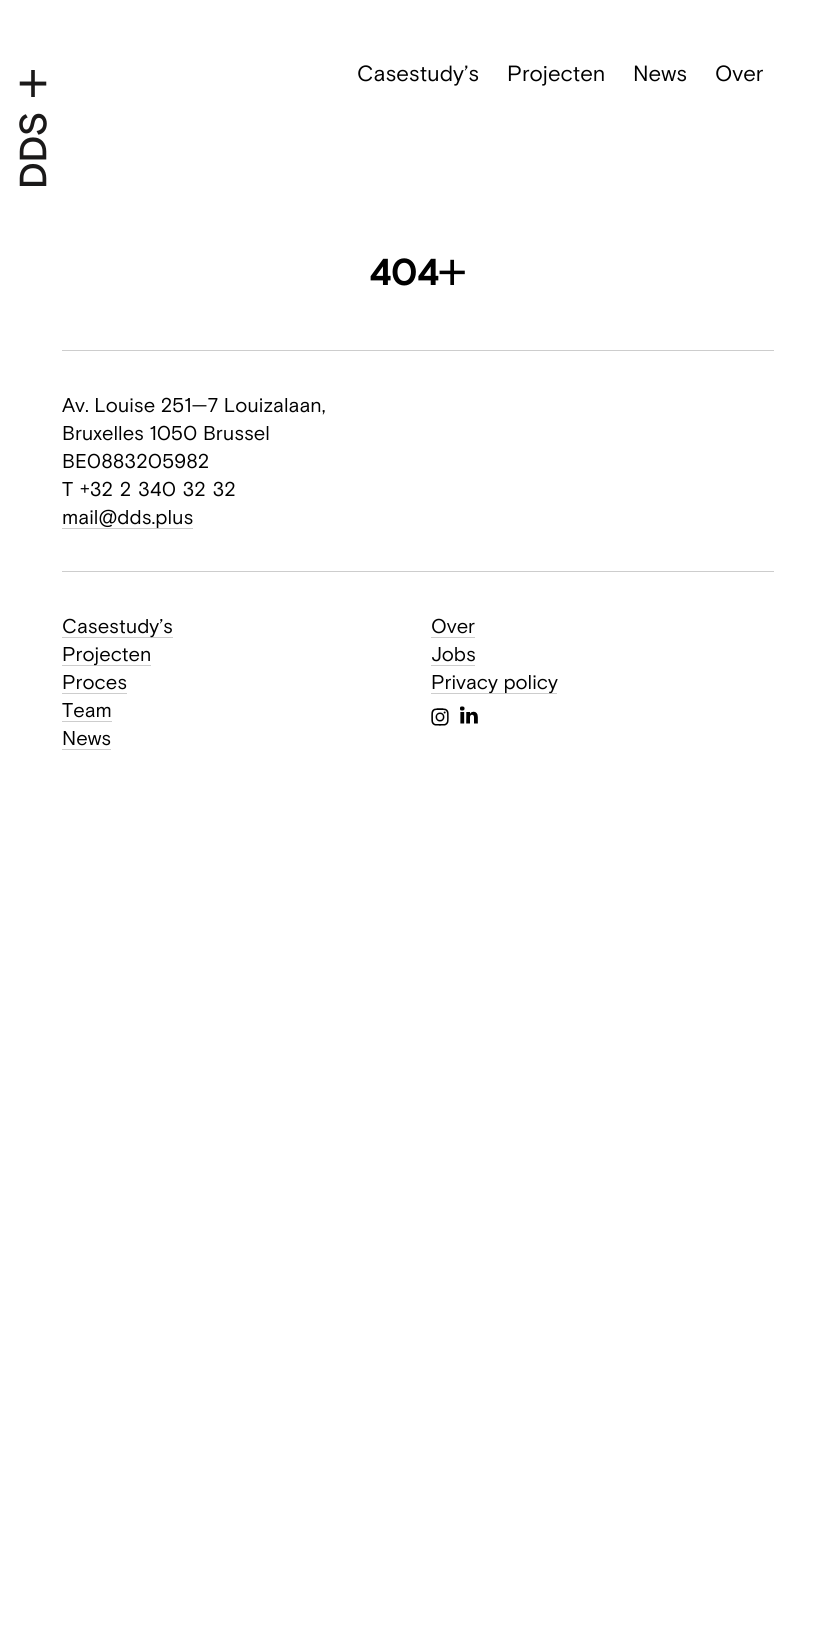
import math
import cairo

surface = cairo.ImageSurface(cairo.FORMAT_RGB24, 836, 1633)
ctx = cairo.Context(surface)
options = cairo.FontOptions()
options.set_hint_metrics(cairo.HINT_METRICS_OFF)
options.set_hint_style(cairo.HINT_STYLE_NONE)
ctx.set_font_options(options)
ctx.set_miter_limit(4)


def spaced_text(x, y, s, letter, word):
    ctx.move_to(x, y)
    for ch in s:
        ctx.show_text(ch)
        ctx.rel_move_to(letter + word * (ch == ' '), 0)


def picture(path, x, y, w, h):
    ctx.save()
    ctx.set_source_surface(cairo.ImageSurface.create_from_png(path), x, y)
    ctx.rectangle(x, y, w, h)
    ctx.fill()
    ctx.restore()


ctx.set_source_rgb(1, 1, 1)
ctx.paint()
picture("img1.png", 19, 70, 28, 116)
ctx.select_font_face("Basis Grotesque")
ctx.set_font_size(22)
ctx.set_source_rgb(0, 0, 0)
ctx.move_to(357, 81)
ctx.show_text("Casestudy’s")
ctx.move_to(507, 81)
ctx.show_text("Projecten")
ctx.move_to(633, 81)
ctx.show_text("News")
ctx.move_to(715, 81)
ctx.show_text("Over")
ctx.select_font_face("Basis Grotesque", cairo.FONT_SLANT_NORMAL, cairo.FONT_WEIGHT_BOLD)
ctx.set_font_size(36)
ctx.move_to(369, 285)
ctx.show_text("404")
ctx.select_font_face("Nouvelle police")
ctx.move_to(438, 285)
ctx.show_text("+")
ctx.set_source_rgb(0.804, 0.804, 0.804)
ctx.rectangle(62, 350, 712, 1)
ctx.fill()
ctx.select_font_face("Basis Grotesque")
ctx.set_font_size(20)
ctx.set_source_rgb(0, 0, 0)
ctx.move_to(62, 412)
ctx.show_text("Av. Louise 251—7 Louizalaan,")
ctx.move_to(62, 440)
ctx.show_text("Bruxelles 1050 Brussel")
ctx.move_to(62, 468)
ctx.show_text("BE0883205982")
spaced_text(62, 496, "T +32 2 340 32 32", 0, 1)
ctx.set_source_rgb(0.804, 0.804, 0.804)
ctx.rectangle(62, 528, 131, 1)
ctx.fill()
ctx.set_source_rgb(0, 0, 0)
ctx.move_to(62, 524)
ctx.show_text("mail@dds.plus")
ctx.set_source_rgb(0.804, 0.804, 0.804)
ctx.rectangle(62, 571, 712, 1)
ctx.fill()
ctx.rectangle(62, 637, 111, 1)
ctx.fill()
ctx.set_source_rgb(0, 0, 0)
ctx.move_to(62, 633)
ctx.show_text("Casestudy’s")
ctx.set_source_rgb(0.804, 0.804, 0.804)
ctx.rectangle(62, 665, 89, 1)
ctx.fill()
ctx.set_source_rgb(0, 0, 0)
ctx.move_to(62, 661)
ctx.show_text("Projecten")
ctx.set_source_rgb(0.804, 0.804, 0.804)
ctx.rectangle(62, 693, 65, 1)
ctx.fill()
ctx.set_source_rgb(0, 0, 0)
ctx.move_to(62, 689)
ctx.show_text("Proces")
ctx.set_source_rgb(0.804, 0.804, 0.804)
ctx.rectangle(62, 721, 50, 1)
ctx.fill()
ctx.set_source_rgb(0, 0, 0)
ctx.move_to(62, 717)
ctx.show_text("Team")
ctx.set_source_rgb(0.804, 0.804, 0.804)
ctx.rectangle(62, 749, 49, 1)
ctx.fill()
ctx.set_source_rgb(0, 0, 0)
ctx.move_to(62, 745)
ctx.show_text("News")
ctx.set_source_rgb(0.804, 0.804, 0.804)
ctx.rectangle(431, 637, 44, 1)
ctx.fill()
ctx.set_source_rgb(0, 0, 0)
ctx.move_to(431, 633)
ctx.show_text("Over")
ctx.set_source_rgb(0.804, 0.804, 0.804)
ctx.rectangle(431, 665, 44, 1)
ctx.fill()
ctx.set_source_rgb(0, 0, 0)
ctx.move_to(431, 661)
ctx.show_text("Jobs")
ctx.set_source_rgb(0.804, 0.804, 0.804)
ctx.rectangle(431, 693, 126, 1)
ctx.fill()
ctx.set_source_rgb(0, 0, 0)
ctx.move_to(431, 689)
ctx.show_text("Privacy policy")
picture("img2.png", 431, 708, 18, 18)
picture("img3.png", 460, 706, 18, 18)
surface.write_to_png("page.png")
